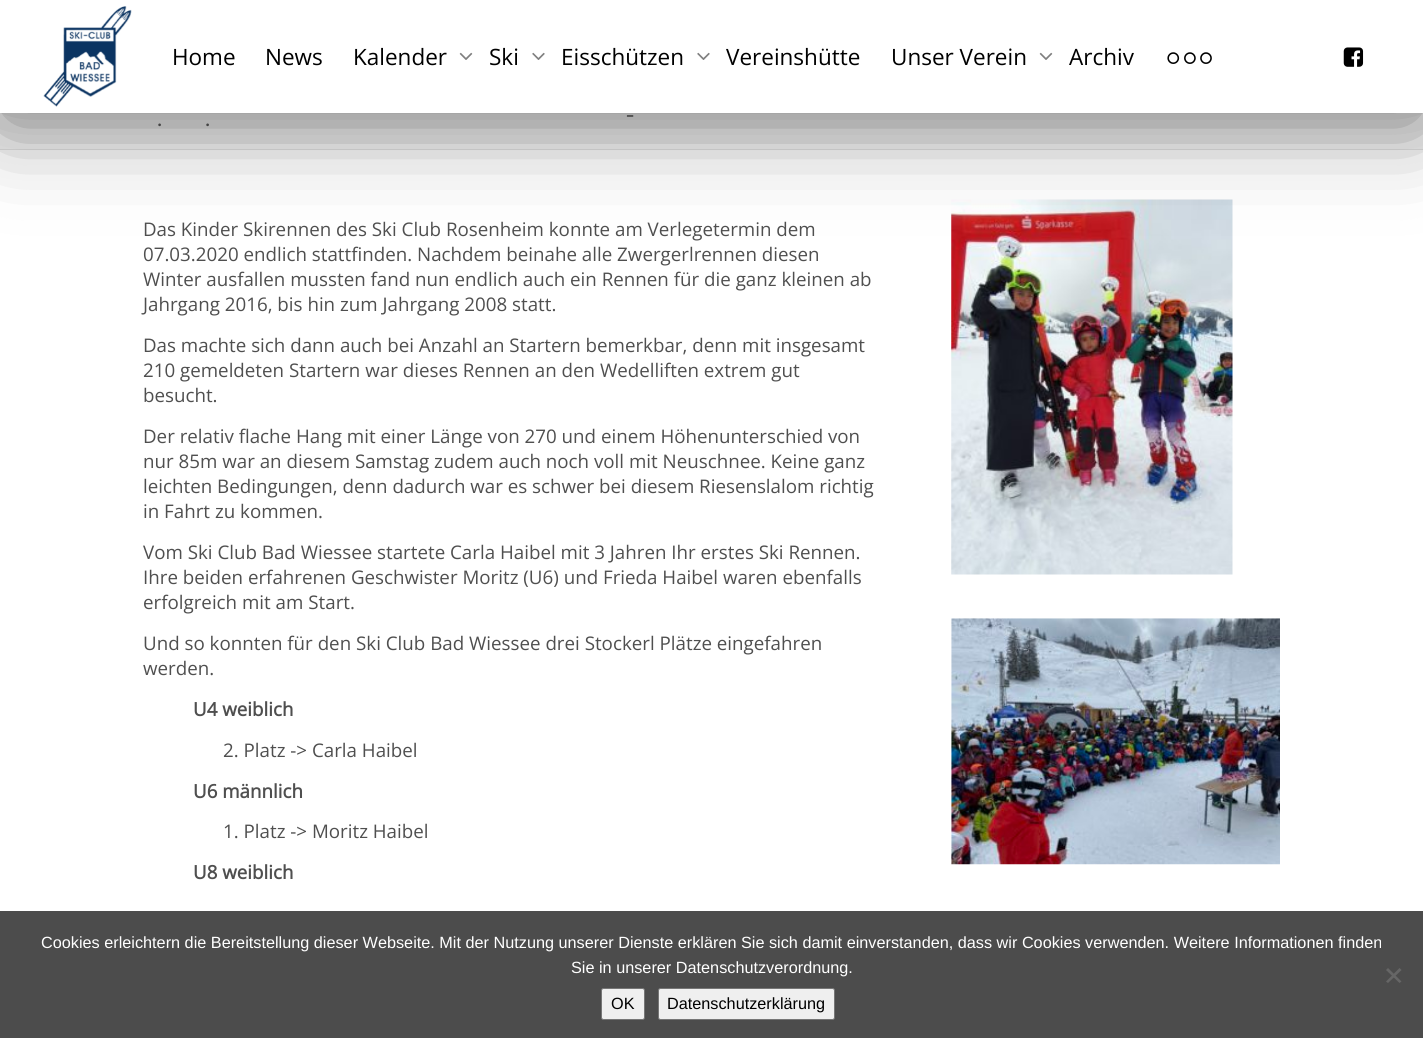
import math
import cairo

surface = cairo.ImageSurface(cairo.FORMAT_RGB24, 1423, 1038)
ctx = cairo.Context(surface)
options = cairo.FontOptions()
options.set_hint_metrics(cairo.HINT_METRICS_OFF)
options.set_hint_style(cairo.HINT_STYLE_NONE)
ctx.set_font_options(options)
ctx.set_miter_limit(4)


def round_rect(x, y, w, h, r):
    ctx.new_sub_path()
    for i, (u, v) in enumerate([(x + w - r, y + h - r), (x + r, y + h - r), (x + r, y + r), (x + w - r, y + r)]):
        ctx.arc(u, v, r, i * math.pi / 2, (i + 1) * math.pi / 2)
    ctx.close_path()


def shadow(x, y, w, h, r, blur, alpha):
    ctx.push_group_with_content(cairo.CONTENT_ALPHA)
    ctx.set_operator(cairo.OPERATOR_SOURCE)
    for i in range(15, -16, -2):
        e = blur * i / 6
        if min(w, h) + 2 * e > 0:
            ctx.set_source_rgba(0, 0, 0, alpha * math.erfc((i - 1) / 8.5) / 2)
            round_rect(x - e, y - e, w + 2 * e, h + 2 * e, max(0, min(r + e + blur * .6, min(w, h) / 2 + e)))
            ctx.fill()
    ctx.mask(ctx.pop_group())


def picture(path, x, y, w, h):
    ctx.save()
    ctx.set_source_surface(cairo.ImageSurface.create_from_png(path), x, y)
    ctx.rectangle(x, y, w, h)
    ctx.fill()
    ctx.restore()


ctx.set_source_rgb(1, 1, 1)
ctx.paint()
ctx.set_source_rgb(0.969, 0.969, 0.969)
ctx.rectangle(0, 113, 1423, 36)
ctx.fill()
ctx.set_source_rgb(0.898, 0.898, 0.898)
ctx.rectangle(0, 149, 1423, 1)
ctx.fill()
picture("img6.png", 951, 199, 282, 376)
ctx.set_source_rgb(0, 0, 0)
shadow(3, -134, 1418, 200, 2.5, 46, 0.5)
shadow(3, 14, 1418, 107, 0, 46, 0.5)
ctx.set_source_rgb(1, 1, 1)
ctx.rectangle(0, 0, 1423, 113)
ctx.fill()
picture("img1.png", 43, 6, 89, 101)
ctx.select_font_face("Open Sans")
ctx.set_font_size(22.5)
ctx.set_source_rgb(0, 0, 0)
ctx.move_to(172, 65)
ctx.show_text("Home")
ctx.move_to(265, 65)
ctx.show_text("News")
ctx.move_to(353, 65)
ctx.show_text("Kalender")
picture("img2.png", 459, 52, 14, 8)
ctx.move_to(489, 65)
ctx.show_text("Ski")
picture("img3.png", 532, 52, 13, 8)
ctx.move_to(561, 65)
ctx.show_text("Eisschützen")
picture("img3.png", 697, 52, 13, 8)
ctx.move_to(726, 65)
ctx.show_text("Vereinshütte")
ctx.move_to(891, 65)
ctx.show_text("Unser Verein")
picture("img2.png", 1039, 52, 14, 8)
ctx.move_to(1069, 65)
ctx.show_text("Archiv")
picture("img4.png", 1167, 52, 45, 12)
picture("img5.png", 1343, 47, 21, 20)
ctx.select_font_face("Roboto Condensed Light")
ctx.set_font_size(32)
ctx.set_source_rgb(0.267, 0.267, 0.267)
ctx.move_to(626, 126)
ctx.show_text("-")
ctx.move_to(156, 126)
ctx.show_text(".")
ctx.move_to(204, 126)
ctx.show_text(".")
ctx.select_font_face("Open Sans")
ctx.set_font_size(18.75)
ctx.set_source_rgb(0.31, 0.31, 0.31)
ctx.move_to(143, 236)
ctx.show_text("Das Kinder Skirennen des Ski Club Rosenheim konnte am Verlegetermin dem")
ctx.move_to(143, 261)
ctx.show_text("07.03.2020 endlich stattfinden. Nachdem beinahe alle Zwergerlrennen diesen")
ctx.move_to(143, 286)
ctx.show_text("Winter ausfallen mussten fand nun endlich auch ein Rennen für die ganz kleinen ab")
ctx.move_to(143, 311)
ctx.show_text("Jahrgang 2016, bis hin zum Jahrgang 2008 statt.")
ctx.move_to(143, 352)
ctx.show_text("Das machte sich dann auch bei Anzahl an Startern bemerkbar, denn mit insgesamt")
ctx.move_to(143, 377)
ctx.show_text("210 gemeldeten Startern war dieses Rennen an den Wedelliften extrem gut")
ctx.move_to(143, 402)
ctx.show_text("besucht.")
ctx.move_to(143, 443)
ctx.show_text("Der relativ flache Hang mit einer Länge von 270 und einem Höhenunterschied von")
ctx.move_to(143, 468)
ctx.show_text("nur 85m war an diesem Samstag zudem auch noch voll mit Neuschnee. Keine ganz")
ctx.move_to(143, 493)
ctx.show_text("leichten Bedingungen, denn dadurch war es schwer bei diesem Riesenslalom richtig")
ctx.move_to(143, 518)
ctx.show_text("in Fahrt zu kommen.")
ctx.move_to(143, 559)
ctx.show_text("Vom Ski Club Bad Wiessee startete Carla Haibel mit 3 Jahren Ihr erstes Ski Rennen.")
ctx.move_to(143, 584)
ctx.show_text("Ihre beiden erfahrenen Geschwister Moritz (U6) und Frieda Haibel waren ebenfalls")
ctx.move_to(143, 609)
ctx.show_text("erfolgreich mit am Start.")
ctx.move_to(143, 650)
ctx.show_text("Und so konnten für den Ski Club Bad Wiessee drei Stockerl Plätze eingefahren")
ctx.move_to(143, 675)
ctx.show_text("werden.")
ctx.select_font_face("Open Sans", cairo.FONT_SLANT_NORMAL, cairo.FONT_WEIGHT_BOLD)
ctx.move_to(193, 716)
ctx.show_text("U4 weiblich")
ctx.select_font_face("Open Sans")
ctx.move_to(223, 757)
ctx.show_text("2. Platz -> Carla Haibel")
ctx.select_font_face("Open Sans", cairo.FONT_SLANT_NORMAL, cairo.FONT_WEIGHT_BOLD)
ctx.move_to(193, 798)
ctx.show_text("U6 männlich")
ctx.select_font_face("Open Sans")
ctx.move_to(223, 838)
ctx.show_text("1. Platz -> Moritz Haibel")
ctx.select_font_face("Open Sans", cairo.FONT_SLANT_NORMAL, cairo.FONT_WEIGHT_BOLD)
ctx.move_to(193, 879)
ctx.show_text("U8 weiblich")
picture("img7.png", 951, 618, 329, 247)
ctx.set_source_rgba(0, 0, 0, 0.7)
ctx.rectangle(0, 911, 1423, 127)
ctx.fill()
ctx.select_font_face("Liberation Sans")
ctx.set_font_size(16.25)
ctx.set_source_rgb(1, 1, 1)
ctx.move_to(41, 948)
ctx.show_text("Cookies erleichtern die Bereitstellung dieser Webseite. Mit der Nutzung unserer Dienste erklären Sie sich damit einverstanden, dass wir Cookies verwenden. Weitere Informationen finden")
ctx.move_to(571, 973)
ctx.show_text("Sie in unserer Datenschutzverordnung.")
ctx.set_source_rgb(0.4, 0.4, 0.4)
ctx.new_path()
ctx.move_to(1399.5, 968)
ctx.line_to(1401.5, 970)
ctx.line_to(1388, 983)
ctx.line_to(1386, 981.5)
ctx.close_path()
ctx.fill()
ctx.new_path()
ctx.move_to(1386, 970)
ctx.line_to(1388, 968)
ctx.line_to(1401.5, 981.5)
ctx.line_to(1399.5, 983)
ctx.close_path()
ctx.fill()
ctx.set_source_rgb(0.937, 0.937, 0.937)
round_rect(601.5, 988.5, 43, 31, 2)
ctx.fill_preserve()
ctx.set_source_rgb(0.463, 0.463, 0.463)
ctx.set_line_width(1)
ctx.stroke()
ctx.set_source_rgb(0, 0, 0)
ctx.move_to(611, 1009)
ctx.show_text("OK")
ctx.set_source_rgb(0.937, 0.937, 0.937)
round_rect(658.5, 988.5, 176, 31, 2)
ctx.fill_preserve()
ctx.set_source_rgb(0.463, 0.463, 0.463)
ctx.stroke()
ctx.set_source_rgb(0, 0, 0)
ctx.move_to(667, 1009)
ctx.show_text("Datenschutzerklärung")
surface.write_to_png("page.png")
